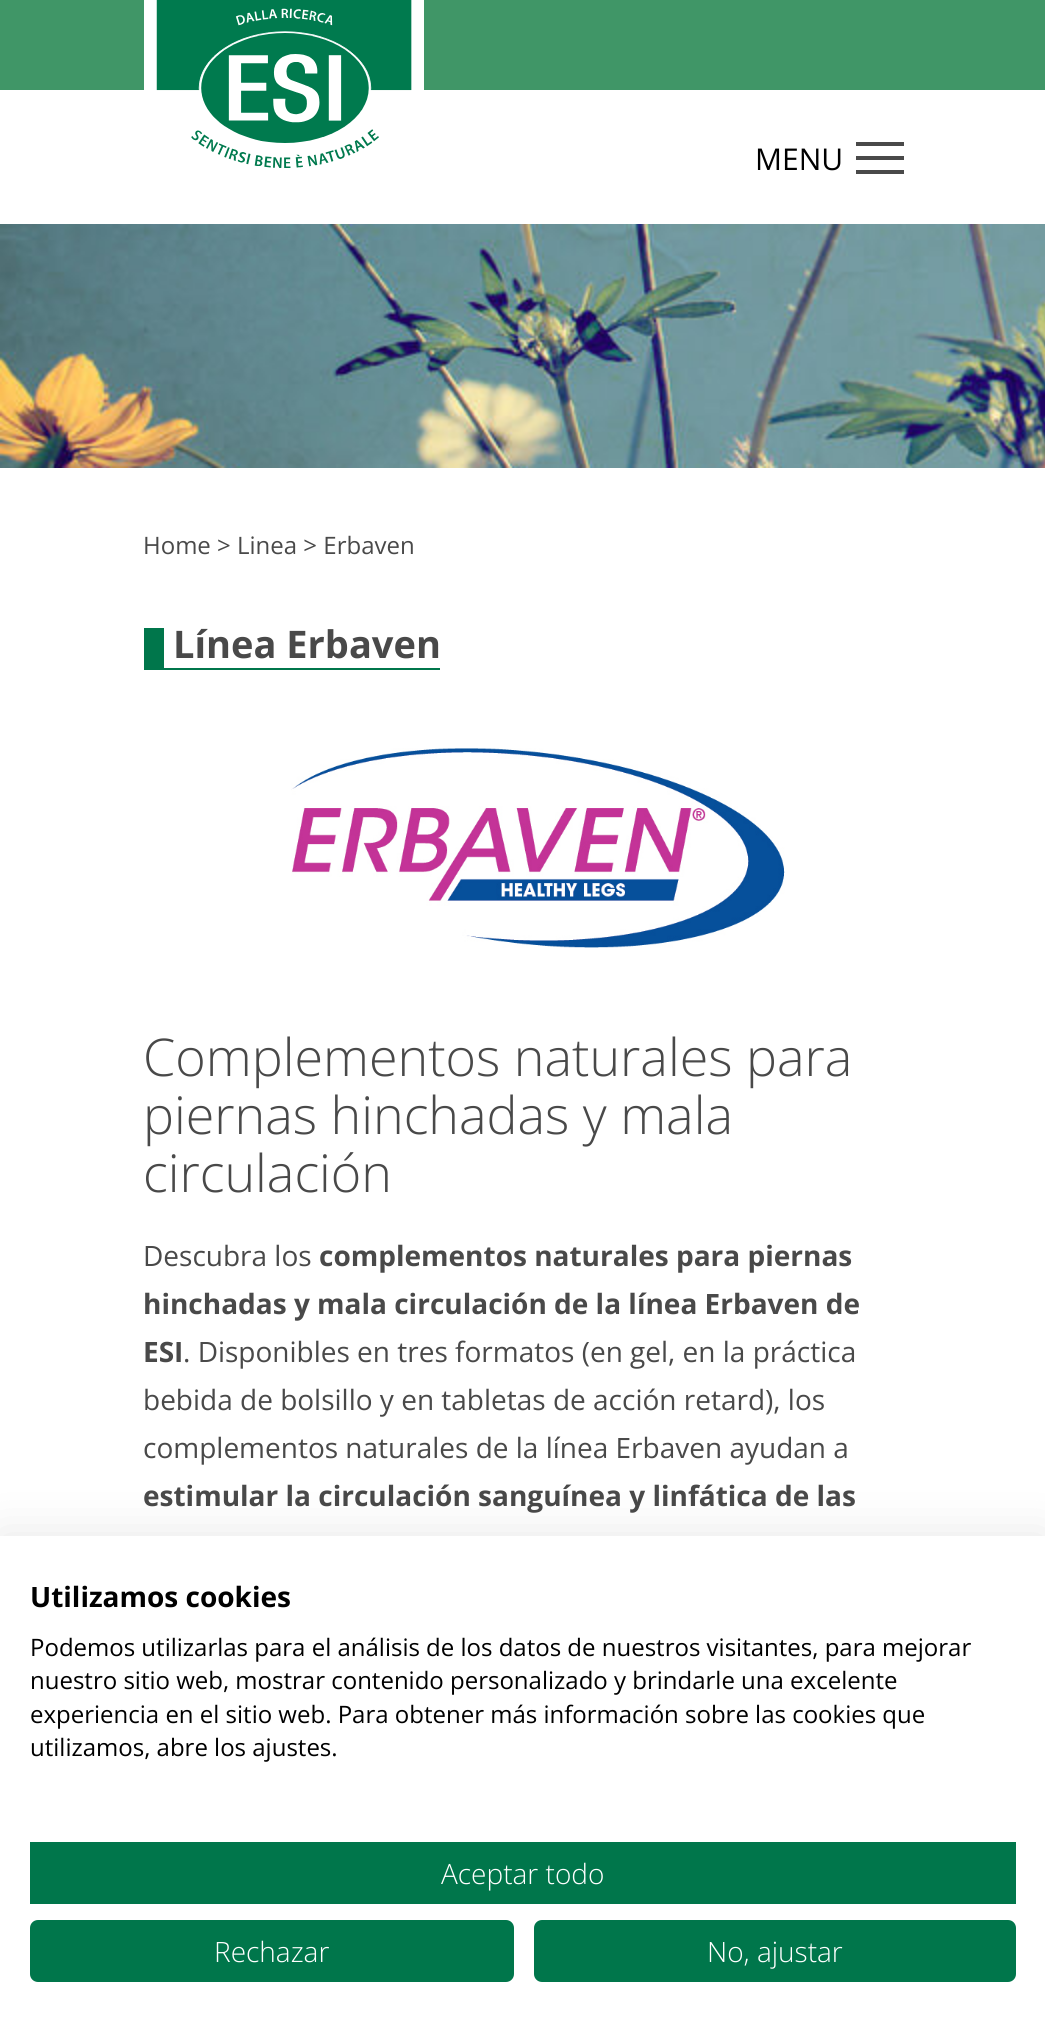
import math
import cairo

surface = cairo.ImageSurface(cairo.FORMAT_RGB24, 1045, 2035)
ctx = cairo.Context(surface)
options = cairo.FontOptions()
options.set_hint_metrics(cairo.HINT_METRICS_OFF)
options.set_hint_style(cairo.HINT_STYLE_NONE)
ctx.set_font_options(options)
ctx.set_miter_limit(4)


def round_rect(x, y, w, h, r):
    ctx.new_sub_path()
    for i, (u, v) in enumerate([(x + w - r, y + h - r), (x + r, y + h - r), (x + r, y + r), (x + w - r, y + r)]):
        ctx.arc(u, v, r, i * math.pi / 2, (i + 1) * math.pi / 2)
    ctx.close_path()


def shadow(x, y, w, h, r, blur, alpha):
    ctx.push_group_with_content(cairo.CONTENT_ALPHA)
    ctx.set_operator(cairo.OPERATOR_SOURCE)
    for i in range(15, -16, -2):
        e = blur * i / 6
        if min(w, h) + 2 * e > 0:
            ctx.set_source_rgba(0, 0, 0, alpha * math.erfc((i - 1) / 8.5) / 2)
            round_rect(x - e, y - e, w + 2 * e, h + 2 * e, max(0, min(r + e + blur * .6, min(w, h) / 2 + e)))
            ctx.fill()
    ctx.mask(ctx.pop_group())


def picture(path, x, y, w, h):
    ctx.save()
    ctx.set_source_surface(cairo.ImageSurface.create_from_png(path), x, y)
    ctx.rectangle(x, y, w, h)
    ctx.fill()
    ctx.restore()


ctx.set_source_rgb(1, 1, 1)
ctx.paint()
ctx.set_source_rgb(0.251, 0.588, 0.404)
ctx.rectangle(0, 0, 1045, 90)
ctx.fill()
ctx.set_source_rgb(1, 1, 1)
ctx.rectangle(144, 0, 280, 90)
ctx.fill()
picture("img1.png", 156, 0, 256, 168)
ctx.select_font_face("Open Sans")
ctx.set_font_size(30)
ctx.set_source_rgb(0, 0, 0)
ctx.move_to(755, 170)
ctx.show_text("MENU")
ctx.set_source_rgb(0.286, 0.286, 0.286)
ctx.rectangle(856, 156, 48, 4)
ctx.fill()
ctx.rectangle(856, 142, 48, 4)
ctx.fill()
ctx.rectangle(856, 170, 48, 4)
ctx.fill()
picture("img2.png", 0, 224, 1045, 244)
ctx.set_font_size(24)
ctx.move_to(143, 554)
ctx.show_text("Home > Linea > Erbaven")
ctx.set_source_rgb(0, 0.463, 0.294)
ctx.rectangle(144, 668, 296, 2)
ctx.fill()
ctx.rectangle(144, 628, 20, 40)
ctx.fill()
ctx.select_font_face("Open Sans", cairo.FONT_SLANT_NORMAL, cairo.FONT_WEIGHT_BOLD)
ctx.set_font_size(38)
ctx.set_source_rgb(0.286, 0.286, 0.286)
ctx.move_to(173, 658)
ctx.show_text("Línea Erbaven")
picture("img3.png", 291, 748, 494, 200)
ctx.select_font_face("Open Sans Light")
ctx.set_font_size(52)
ctx.move_to(143, 1076)
ctx.show_text("Complementos naturales para")
ctx.move_to(143, 1134)
ctx.show_text("piernas hinchadas y mala")
ctx.move_to(143, 1192)
ctx.show_text("circulación")
ctx.select_font_face("Open Sans")
ctx.set_font_size(28)
ctx.move_to(143, 1266)
ctx.show_text("Descubra los")
ctx.select_font_face("Open Sans", cairo.FONT_SLANT_NORMAL, cairo.FONT_WEIGHT_BOLD)
ctx.move_to(319, 1266)
ctx.show_text("complementos naturales para piernas")
ctx.move_to(143, 1314)
ctx.show_text("hinchadas y mala circulación de la línea Erbaven de")
ctx.move_to(143, 1362)
ctx.show_text("ESI")
ctx.select_font_face("Open Sans")
ctx.move_to(183, 1362)
ctx.show_text(". Disponibles en tres formatos (en gel, en la práctica")
ctx.move_to(143, 1410)
ctx.show_text("bebida de bolsillo y en tabletas de acción retard), los")
ctx.move_to(143, 1458)
ctx.show_text("complementos naturales de la línea Erbaven ayudan a")
ctx.select_font_face("Open Sans", cairo.FONT_SLANT_NORMAL, cairo.FONT_WEIGHT_BOLD)
ctx.move_to(143, 1506)
ctx.show_text("estimular la circulación sanguínea y linfática de las")
ctx.set_source_rgb(0, 0, 0)
shadow(0, 1536, 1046, 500, 0, 24, 0.1)
ctx.set_source_rgb(1, 1, 1)
ctx.rectangle(0, 1536, 1045, 499)
ctx.fill()
ctx.set_source_rgb(0, 0, 0)
ctx.move_to(30, 1607)
ctx.show_text("Utilizamos cookies")
ctx.select_font_face("Open Sans")
ctx.set_font_size(24)
ctx.move_to(30, 1656)
ctx.show_text("Podemos utilizarlas para el análisis de los datos de nuestros visitantes, para mejorar")
ctx.move_to(30, 1689)
ctx.show_text("nuestro sitio web, mostrar contenido personalizado y brindarle una excelente")
ctx.move_to(30, 1723)
ctx.show_text("experiencia en el sitio web. Para obtener más información sobre las cookies que")
ctx.move_to(30, 1756)
ctx.show_text("utilizamos, abre los ajustes.")
ctx.set_source_rgb(0, 0.463, 0.294)
ctx.rectangle(30, 1842, 986, 62)
ctx.fill()
ctx.select_font_face("Open Sans Light")
ctx.set_font_size(28)
ctx.set_source_rgb(1, 1, 1)
ctx.move_to(441, 1884)
ctx.show_text("Aceptar todo")
ctx.set_source_rgb(0, 0.463, 0.294)
round_rect(31, 1921, 482, 60, 7)
ctx.fill_preserve()
ctx.stroke()
ctx.set_source_rgb(1, 1, 1)
ctx.move_to(214, 1962)
ctx.show_text("Rechazar")
ctx.set_source_rgb(0, 0.463, 0.294)
round_rect(535, 1921, 480, 60, 7)
ctx.fill_preserve()
ctx.stroke()
ctx.set_source_rgb(1, 1, 1)
ctx.move_to(707, 1962)
ctx.show_text("No, ajustar")
surface.write_to_png("page.png")
